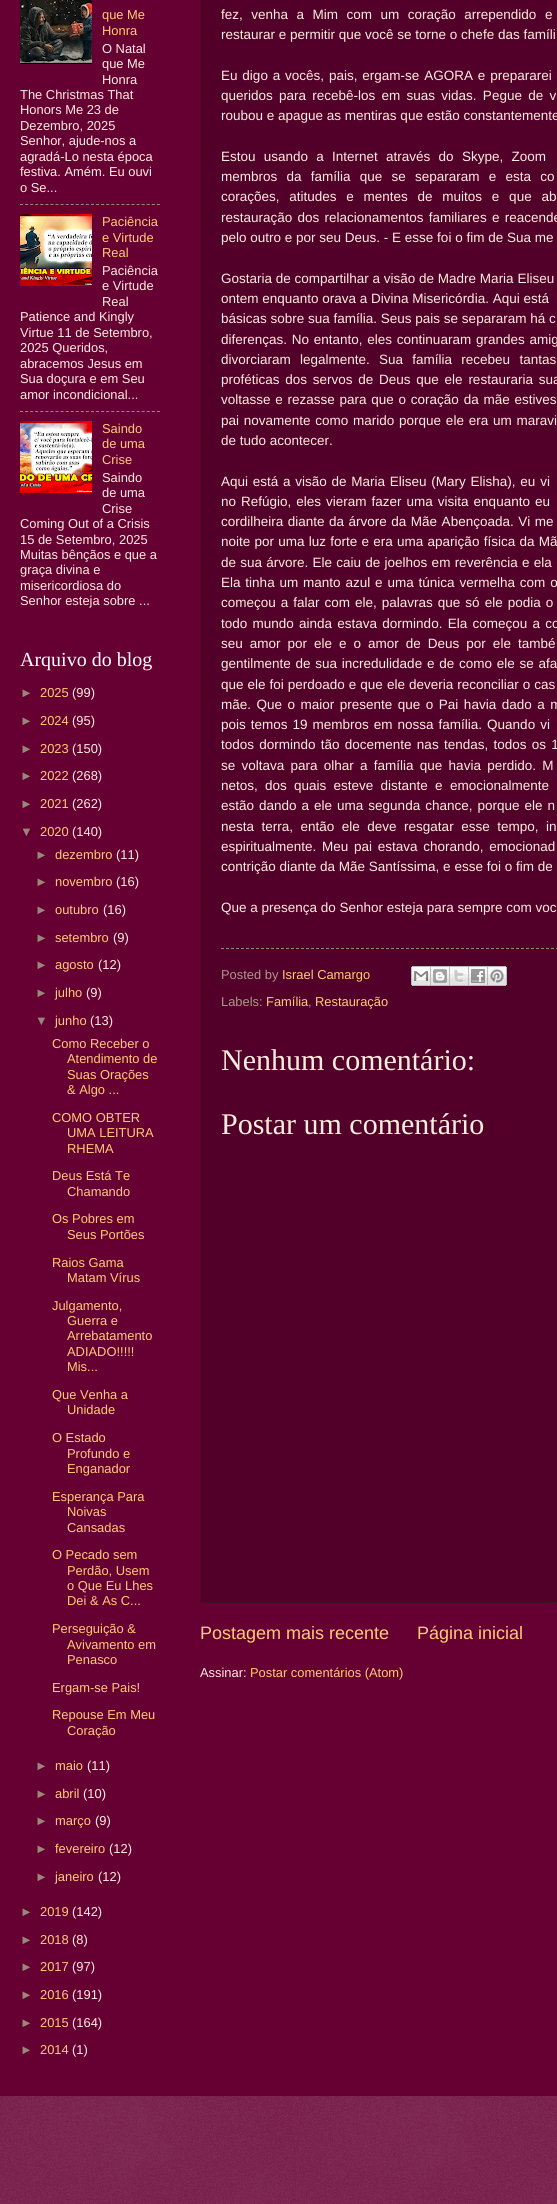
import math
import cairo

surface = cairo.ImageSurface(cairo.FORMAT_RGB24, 557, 2204)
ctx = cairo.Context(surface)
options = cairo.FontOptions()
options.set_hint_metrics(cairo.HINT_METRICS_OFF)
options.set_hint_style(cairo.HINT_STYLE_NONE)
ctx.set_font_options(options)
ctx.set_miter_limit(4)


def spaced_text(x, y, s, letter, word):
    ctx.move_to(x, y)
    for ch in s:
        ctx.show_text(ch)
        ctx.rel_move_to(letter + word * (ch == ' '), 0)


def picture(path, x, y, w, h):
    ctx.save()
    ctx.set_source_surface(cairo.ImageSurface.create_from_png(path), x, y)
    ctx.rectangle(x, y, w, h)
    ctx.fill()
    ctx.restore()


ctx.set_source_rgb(0.4, 0, 0.2)
ctx.paint()
picture("img1.png", 20, 0, 72, 64)
ctx.select_font_face("Liberation Sans")
ctx.set_font_size(12.9)
ctx.set_source_rgb(1, 0.8, 0.467)
ctx.move_to(102, 19)
ctx.show_text("que Me")
ctx.move_to(102, 35)
ctx.show_text("Honra")
ctx.set_source_rgb(1, 0.933, 0.867)
ctx.move_to(102, 53)
ctx.show_text("O Natal")
ctx.move_to(102, 68)
ctx.show_text("que Me")
ctx.move_to(102, 84)
ctx.show_text("Honra")
ctx.move_to(20, 99)
ctx.show_text("The Christmas That")
ctx.move_to(20, 114)
ctx.show_text("Honors Me 23 de")
ctx.move_to(20, 130)
ctx.show_text("Dezembro, 2025")
ctx.move_to(20, 145)
ctx.show_text("Senhor, ajude-nos a")
ctx.move_to(20, 161)
ctx.show_text("agradá-Lo nesta época")
ctx.move_to(20, 176)
ctx.show_text("festiva. Amém. Eu ouvi")
ctx.move_to(20, 192)
ctx.show_text("o Se...")
ctx.new_path()
ctx.move_to(20, 204.5)
ctx.line_to(160, 204.5)
ctx.set_source_rgb(0.6, 0.533, 0.467)
ctx.set_line_width(1)
ctx.set_dash([3, 2.07])
ctx.stroke()
picture("img2.png", 20, 214, 72, 72)
ctx.set_source_rgb(1, 0.8, 0.467)
ctx.move_to(102, 226)
ctx.show_text("Paciência")
ctx.move_to(102, 242)
ctx.show_text("e Virtude")
ctx.move_to(102, 257)
ctx.show_text("Real")
ctx.set_source_rgb(1, 0.933, 0.867)
ctx.move_to(102, 275)
ctx.show_text("Paciência")
ctx.move_to(102, 290)
ctx.show_text("e Virtude")
ctx.move_to(102, 306)
ctx.show_text("Real")
ctx.move_to(20, 321)
ctx.show_text("Patience and Kingly")
ctx.move_to(20, 337)
ctx.show_text("Virtue 11 de Setembro,")
ctx.move_to(20, 352)
ctx.show_text("2025 Queridos,")
ctx.move_to(20, 368)
ctx.show_text("abracemos Jesus em")
ctx.move_to(20, 383)
ctx.show_text("Sua doçura e em Seu")
ctx.move_to(20, 399)
ctx.show_text("amor incondicional...")
ctx.new_path()
ctx.move_to(20, 411.5)
ctx.line_to(160, 411.5)
ctx.set_source_rgb(0.6, 0.533, 0.467)
ctx.stroke()
picture("img3.png", 20, 421, 72, 72)
ctx.set_source_rgb(1, 0.8, 0.467)
ctx.move_to(102, 433)
ctx.show_text("Saindo")
ctx.move_to(102, 448)
ctx.show_text("de uma")
ctx.move_to(102, 464)
ctx.show_text("Crise")
ctx.set_source_rgb(1, 0.933, 0.867)
ctx.move_to(102, 482)
ctx.show_text("Saindo")
ctx.move_to(102, 497)
ctx.show_text("de uma")
ctx.move_to(102, 513)
ctx.show_text("Crise")
ctx.move_to(20, 528)
ctx.show_text("Coming Out of a Crisis")
ctx.move_to(20, 544)
ctx.show_text("15 de Setembro, 2025")
ctx.move_to(20, 559)
ctx.show_text("Muitas bênçãos e que a")
ctx.move_to(20, 574)
ctx.show_text("graça divina e")
ctx.move_to(20, 590)
ctx.show_text("misericordiosa do")
ctx.move_to(20, 605)
ctx.show_text("Senhor esteja sobre ...")
ctx.select_font_face("Liberation Serif")
ctx.set_font_size(20)
ctx.set_source_rgb(1, 1, 1)
ctx.move_to(20, 666)
ctx.show_text("Arquivo do blog")
ctx.select_font_face("Liberation Sans")
ctx.set_font_size(12.9)
ctx.set_source_rgb(0.6, 0.533, 0.467)
ctx.move_to(20, 697)
ctx.show_text("►")
ctx.set_source_rgb(1, 0.8, 0.467)
ctx.move_to(40, 697)
ctx.show_text("2025")
ctx.set_source_rgb(1, 0.933, 0.867)
ctx.move_to(72, 697)
ctx.show_text("(99)")
ctx.set_source_rgb(0.6, 0.533, 0.467)
ctx.move_to(20, 725)
ctx.show_text("►")
ctx.set_source_rgb(1, 0.8, 0.467)
ctx.move_to(40, 725)
ctx.show_text("2024")
ctx.set_source_rgb(1, 0.933, 0.867)
ctx.move_to(72, 725)
ctx.show_text("(95)")
ctx.set_source_rgb(0.6, 0.533, 0.467)
ctx.move_to(20, 753)
ctx.show_text("►")
ctx.set_source_rgb(1, 0.8, 0.467)
ctx.move_to(40, 753)
ctx.show_text("2023")
ctx.set_source_rgb(1, 0.933, 0.867)
ctx.move_to(72, 753)
ctx.show_text("(150)")
ctx.set_source_rgb(0.6, 0.533, 0.467)
ctx.move_to(20, 780)
ctx.show_text("►")
ctx.set_source_rgb(1, 0.8, 0.467)
ctx.move_to(40, 780)
ctx.show_text("2022")
ctx.set_source_rgb(1, 0.933, 0.867)
ctx.move_to(72, 780)
ctx.show_text("(268)")
ctx.set_source_rgb(0.6, 0.533, 0.467)
ctx.move_to(20, 808)
ctx.show_text("►")
ctx.set_source_rgb(1, 0.8, 0.467)
ctx.move_to(40, 808)
ctx.show_text("2021")
ctx.set_source_rgb(1, 0.933, 0.867)
ctx.move_to(72, 808)
ctx.show_text("(262)")
ctx.set_source_rgb(0.6, 0.533, 0.467)
ctx.move_to(20, 836)
ctx.show_text("▼")
ctx.set_source_rgb(1, 0.8, 0.467)
ctx.move_to(40, 836)
ctx.show_text("2020")
ctx.set_source_rgb(1, 0.933, 0.867)
ctx.move_to(72, 836)
ctx.show_text("(140)")
ctx.set_source_rgb(0.6, 0.533, 0.467)
ctx.move_to(35, 859)
ctx.show_text("►")
ctx.set_source_rgb(1, 0.8, 0.467)
ctx.move_to(55, 859)
ctx.show_text("dezembro")
ctx.set_source_rgb(1, 0.933, 0.867)
ctx.move_to(116, 859)
ctx.show_text("(11)")
ctx.set_source_rgb(0.6, 0.533, 0.467)
ctx.move_to(35, 886)
ctx.show_text("►")
ctx.set_source_rgb(1, 0.8, 0.467)
ctx.move_to(55, 886)
ctx.show_text("novembro")
ctx.set_source_rgb(1, 0.933, 0.867)
ctx.move_to(116, 886)
ctx.show_text("(16)")
ctx.set_source_rgb(0.6, 0.533, 0.467)
ctx.move_to(35, 914)
ctx.show_text("►")
ctx.set_source_rgb(1, 0.8, 0.467)
ctx.move_to(55, 914)
ctx.show_text("outubro")
ctx.set_source_rgb(1, 0.933, 0.867)
ctx.move_to(103, 914)
ctx.show_text("(16)")
ctx.set_source_rgb(0.6, 0.533, 0.467)
ctx.move_to(35, 942)
ctx.show_text("►")
ctx.set_source_rgb(1, 0.8, 0.467)
ctx.move_to(55, 942)
ctx.show_text("setembro")
ctx.set_source_rgb(1, 0.933, 0.867)
ctx.move_to(113, 942)
ctx.show_text("(9)")
ctx.set_source_rgb(0.6, 0.533, 0.467)
ctx.move_to(35, 969)
ctx.show_text("►")
ctx.set_source_rgb(1, 0.8, 0.467)
ctx.move_to(55, 969)
ctx.show_text("agosto")
ctx.set_source_rgb(1, 0.933, 0.867)
ctx.move_to(98, 969)
ctx.show_text("(12)")
ctx.set_source_rgb(0.6, 0.533, 0.467)
ctx.move_to(35, 997)
ctx.show_text("►")
ctx.set_source_rgb(1, 0.8, 0.467)
ctx.move_to(55, 997)
ctx.show_text("julho")
ctx.set_source_rgb(1, 0.933, 0.867)
ctx.move_to(86, 997)
ctx.show_text("(9)")
ctx.set_source_rgb(0.6, 0.533, 0.467)
ctx.move_to(35, 1025)
ctx.show_text("▼")
ctx.set_source_rgb(1, 0.8, 0.467)
ctx.move_to(55, 1025)
ctx.show_text("junho")
ctx.set_source_rgb(1, 0.933, 0.867)
ctx.move_to(90, 1025)
ctx.show_text("(13)")
ctx.set_source_rgb(1, 0.8, 0.467)
ctx.move_to(52, 1048)
ctx.show_text("Como Receber o")
ctx.move_to(67, 1063)
ctx.show_text("Atendimento de")
ctx.move_to(67, 1079)
ctx.show_text("Suas Orações")
ctx.move_to(67, 1094)
ctx.show_text("& Algo ...")
ctx.move_to(52, 1122)
ctx.show_text("COMO OBTER")
ctx.move_to(67, 1137)
ctx.show_text("UMA LEITURA")
ctx.move_to(67, 1153)
ctx.show_text("RHEMA")
ctx.move_to(52, 1180)
ctx.show_text("Deus Está Te")
ctx.move_to(67, 1196)
ctx.show_text("Chamando")
ctx.move_to(52, 1223)
ctx.show_text("Os Pobres em")
ctx.move_to(67, 1239)
ctx.show_text("Seus Portões")
ctx.move_to(52, 1267)
ctx.show_text("Raios Gama")
ctx.move_to(67, 1282)
ctx.show_text("Matam Vírus")
ctx.move_to(52, 1310)
ctx.show_text("Julgamento,")
ctx.move_to(67, 1325)
ctx.show_text("Guerra e")
ctx.move_to(67, 1340)
ctx.show_text("Arrebatamento")
ctx.move_to(67, 1356)
ctx.show_text("ADIADO!!!!!")
ctx.move_to(67, 1371)
ctx.show_text("Mis...")
ctx.move_to(52, 1399)
ctx.show_text("Que Venha a")
ctx.move_to(67, 1414)
ctx.show_text("Unidade")
ctx.move_to(52, 1442)
ctx.show_text("O Estado")
ctx.move_to(67, 1458)
ctx.show_text("Profundo e")
ctx.move_to(67, 1473)
ctx.show_text("Enganador")
ctx.move_to(52, 1501)
ctx.show_text("Esperança Para")
ctx.move_to(67, 1516)
ctx.show_text("Noivas")
ctx.move_to(67, 1532)
ctx.show_text("Cansadas")
ctx.move_to(52, 1559)
ctx.show_text("O Pecado sem")
ctx.move_to(67, 1575)
ctx.show_text("Perdão, Usem")
ctx.move_to(67, 1590)
ctx.show_text("o Que Eu Lhes")
ctx.move_to(67, 1605)
ctx.show_text("Dei & As C...")
ctx.move_to(52, 1633)
ctx.show_text("Perseguição &")
ctx.move_to(67, 1649)
ctx.show_text("Avivamento em")
ctx.move_to(67, 1664)
ctx.show_text("Penasco")
ctx.move_to(52, 1692)
ctx.show_text("Ergam-se Pais!")
ctx.move_to(52, 1719)
ctx.show_text("Repouse Em Meu")
ctx.move_to(67, 1735)
ctx.show_text("Coração")
ctx.set_source_rgb(0.6, 0.533, 0.467)
ctx.move_to(35, 1770)
ctx.show_text("►")
ctx.set_source_rgb(1, 0.8, 0.467)
ctx.move_to(55, 1770)
ctx.show_text("maio")
ctx.set_source_rgb(1, 0.933, 0.867)
ctx.move_to(87, 1770)
ctx.show_text("(11)")
ctx.set_source_rgb(0.6, 0.533, 0.467)
ctx.move_to(35, 1798)
ctx.show_text("►")
ctx.set_source_rgb(1, 0.8, 0.467)
ctx.move_to(55, 1798)
ctx.show_text("abril")
ctx.set_source_rgb(1, 0.933, 0.867)
ctx.move_to(83, 1798)
ctx.show_text("(10)")
ctx.set_source_rgb(0.6, 0.533, 0.467)
ctx.move_to(35, 1825)
ctx.show_text("►")
ctx.set_source_rgb(1, 0.8, 0.467)
ctx.move_to(55, 1825)
ctx.show_text("março")
ctx.set_source_rgb(1, 0.933, 0.867)
ctx.move_to(95, 1825)
ctx.show_text("(9)")
ctx.set_source_rgb(0.6, 0.533, 0.467)
ctx.move_to(35, 1853)
ctx.show_text("►")
ctx.set_source_rgb(1, 0.8, 0.467)
ctx.move_to(55, 1853)
ctx.show_text("fevereiro")
ctx.set_source_rgb(1, 0.933, 0.867)
ctx.move_to(109, 1853)
ctx.show_text("(12)")
ctx.set_source_rgb(0.6, 0.533, 0.467)
ctx.move_to(35, 1881)
ctx.show_text("►")
ctx.set_source_rgb(1, 0.8, 0.467)
ctx.move_to(55, 1881)
ctx.show_text("janeiro")
ctx.set_source_rgb(1, 0.933, 0.867)
ctx.move_to(98, 1881)
ctx.show_text("(12)")
ctx.set_source_rgb(0.6, 0.533, 0.467)
ctx.move_to(20, 1916)
ctx.show_text("►")
ctx.set_source_rgb(1, 0.8, 0.467)
ctx.move_to(40, 1916)
ctx.show_text("2019")
ctx.set_source_rgb(1, 0.933, 0.867)
ctx.move_to(72, 1916)
ctx.show_text("(142)")
ctx.set_source_rgb(0.6, 0.533, 0.467)
ctx.move_to(20, 1944)
ctx.show_text("►")
ctx.set_source_rgb(1, 0.8, 0.467)
ctx.move_to(40, 1944)
ctx.show_text("2018")
ctx.set_source_rgb(1, 0.933, 0.867)
ctx.move_to(72, 1944)
ctx.show_text("(8)")
ctx.set_source_rgb(0.6, 0.533, 0.467)
ctx.move_to(20, 1971)
ctx.show_text("►")
ctx.set_source_rgb(1, 0.8, 0.467)
ctx.move_to(40, 1971)
ctx.show_text("2017")
ctx.set_source_rgb(1, 0.933, 0.867)
ctx.move_to(72, 1971)
ctx.show_text("(97)")
ctx.set_source_rgb(0.6, 0.533, 0.467)
ctx.move_to(20, 1999)
ctx.show_text("►")
ctx.set_source_rgb(1, 0.8, 0.467)
ctx.move_to(40, 1999)
ctx.show_text("2016")
ctx.set_source_rgb(1, 0.933, 0.867)
ctx.move_to(72, 1999)
ctx.show_text("(191)")
ctx.set_source_rgb(0.6, 0.533, 0.467)
ctx.move_to(20, 2027)
ctx.show_text("►")
ctx.set_source_rgb(1, 0.8, 0.467)
ctx.move_to(40, 2027)
ctx.show_text("2015")
ctx.set_source_rgb(1, 0.933, 0.867)
ctx.move_to(72, 2027)
ctx.show_text("(164)")
ctx.set_source_rgb(0.6, 0.533, 0.467)
ctx.move_to(20, 2054)
ctx.show_text("►")
ctx.set_source_rgb(1, 0.8, 0.467)
ctx.move_to(40, 2054)
ctx.show_text("2014")
ctx.set_source_rgb(1, 0.933, 0.867)
ctx.move_to(72, 2054)
ctx.show_text("(1)")
ctx.set_source_rgb(0.322, 0, 0.161)
ctx.rectangle(200, 0, 357, 1603)
ctx.fill()
ctx.new_path()
ctx.move_to(200, 1602.5)
ctx.line_to(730, 1602.5)
ctx.set_source_rgb(0.2, 0.133, 0.067)
ctx.set_dash([1, 1])
ctx.stroke()
ctx.new_path()
ctx.move_to(200.5, -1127)
ctx.line_to(200.5, 1603)
ctx.stroke()
ctx.set_font_size(13.5)
ctx.set_source_rgb(1, 0.933, 0.867)
spaced_text(221, 19, "fez, venha a Mim com um coração arrependido e", 0, 4.75)
ctx.move_to(221, 39)
ctx.show_text("restaurar e permitir que você se torne o chefe das famíli")
spaced_text(221, 80, "Eu digo a vocês, pais, ergam-se AGORA e prepararei", 0, 1.1)
spaced_text(221, 100, "queridos para recebê-los em suas vidas. Pegue de v", 0, 2.5)
ctx.move_to(221, 120)
ctx.show_text("roubou e apague as mentiras que estão constantemente")
spaced_text(221, 161, "Estou usando a Internet através do Skype, Zoom", 0, 4.5)
spaced_text(221, 181, "membros da família que se separaram e esta co", 0, 5.5)
spaced_text(221, 201, "corações, atitudes e mentes de muitos e que ab", 0, 6)
spaced_text(221, 222, "restauração dos relacionamentos familiares e reacende", 0, 1.5)
ctx.move_to(221, 242)
ctx.show_text("pelo outro e por seu Deus. - E esse foi o fim de Sua me")
ctx.move_to(221, 283)
ctx.show_text("Gostaria de compartilhar a visão de Madre Maria Eliseu")
ctx.move_to(221, 303)
ctx.show_text("ontem enquanto orava a Divina Misericórdia. Aqui está")
ctx.move_to(221, 323)
ctx.show_text("básicas sobre sua família. Seus pais se separaram há c")
spaced_text(221, 344, "diferenças. No entanto, eles continuaram grandes amig", 0, 1)
spaced_text(221, 364, "divorciaram legalmente. Sua família recebeu tantas", 0, 5.5)
spaced_text(221, 384, "proféticas dos servos de Deus que ele restauraria sua", 0, 2)
spaced_text(221, 404, "voltasse e rezasse para que o coração da mãe estives", 0, 1)
spaced_text(221, 425, "pai novamente como marido porque ele era um maravi", 0, 1)
ctx.move_to(221, 445)
ctx.show_text("de tudo acontecer.")
spaced_text(221, 486, "Aqui está a visão de Maria Eliseu (Mary Elisha), eu vi", 0, 1)
spaced_text(221, 506, "no Refúgio, eles vieram fazer uma visita enquanto eu", 0, 1.25)
spaced_text(221, 526, "cordilheira diante da árvore da Mãe Abençoada. Vi me", 0, 0.75)
spaced_text(221, 546, "noite por uma luz forte e era uma aparição física da Mã", 0, 0.5)
spaced_text(221, 567, "de sua árvore. Ele caiu de joelhos em reverência e ela", 0, 0.5)
spaced_text(221, 587, "Ela tinha um manto azul e uma túnica vermelha com o", 0, 1.1)
spaced_text(221, 607, "começou a falar com ele, palavras que só ele podia o", 0, 1.25)
spaced_text(221, 628, "todo mundo ainda estava dormindo. Ela começou a co", 0, 1.5)
spaced_text(221, 648, "seu amor por ele e o amor de Deus por ele també", 0, 3.25)
spaced_text(221, 668, "gentilmente de sua incredulidade e de como ele se afa", 0, 1)
spaced_text(221, 689, "que ele foi perdoado e que ele deveria reconciliar o cas", 0, 0.25)
spaced_text(221, 709, "mãe. Que o maior presente que o Pai havia dado a m", 0, 1.75)
spaced_text(221, 729, "pois temos 19 membros em nossa família. Quando vi", 0, 1.25)
spaced_text(221, 749, "todos dormindo tão docemente nas tendas, todos os 1", 0, 1.5)
spaced_text(221, 770, "se voltava para olhar a família que havia perdido. M", 0, 2.5)
spaced_text(221, 790, "netos, dos quais esteve distante e emocionalmente", 0, 3.5)
spaced_text(221, 810, "estão dando a ele uma segunda chance, porque ele n", 0, 1.25)
spaced_text(221, 831, "nesta terra, então ele deve resgatar esse tempo, in", 0, 3.75)
spaced_text(221, 851, "espiritualmente. Meu pai estava chorando, emocionad", 0, 2)
ctx.move_to(221, 871)
ctx.show_text("contrição diante da Mãe Santíssima, e esse foi o fim de")
ctx.move_to(221, 912)
ctx.show_text("Que a presença do Senhor esteja para sempre com voc")
ctx.new_path()
ctx.move_to(221, 948.5)
ctx.line_to(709, 948.5)
ctx.set_source_rgb(0.6, 0.533, 0.467)
ctx.set_dash([3, 2])
ctx.stroke()
ctx.set_font_size(12.9)
ctx.set_source_rgb(0.667, 0.6, 0.533)
ctx.move_to(221, 979)
ctx.show_text("Posted by")
ctx.set_source_rgb(1, 0.8, 0.467)
ctx.move_to(282, 979)
ctx.show_text("Israel Camargo")
picture("img4.png", 411, 966, 20, 20)
picture("img5.png", 431, 966, 19, 20)
picture("img6.png", 450, 966, 19, 20)
picture("img7.png", 469, 966, 19, 20)
picture("img8.png", 488, 966, 19, 20)
ctx.set_source_rgb(0.667, 0.6, 0.533)
ctx.move_to(221, 1006)
ctx.show_text("Labels:")
ctx.set_source_rgb(1, 0.8, 0.467)
ctx.move_to(266, 1006)
ctx.show_text("Família")
ctx.set_source_rgb(0.667, 0.6, 0.533)
ctx.move_to(308, 1006)
ctx.show_text(",")
ctx.set_source_rgb(1, 0.8, 0.467)
ctx.move_to(315, 1006)
ctx.show_text("Restauração")
ctx.select_font_face("Liberation Serif")
ctx.set_font_size(30)
ctx.set_source_rgb(1, 0.933, 0.867)
ctx.move_to(221, 1070)
ctx.show_text("Nenhum comentário:")
ctx.move_to(221, 1134)
ctx.show_text("Postar um comentário")
ctx.select_font_face("Liberation Sans")
ctx.set_font_size(18)
ctx.set_source_rgb(1, 0.8, 0.467)
ctx.move_to(200, 1639)
ctx.show_text("Postagem mais recente")
ctx.move_to(417, 1639)
ctx.show_text("Página inicial")
ctx.set_font_size(12.9)
ctx.set_source_rgb(1, 0.933, 0.867)
ctx.move_to(200, 1677)
ctx.show_text("Assinar:")
ctx.set_source_rgb(1, 0.8, 0.467)
ctx.move_to(250, 1677)
ctx.show_text("Postar comentários (Atom)")
picture("img9.png", 0, 2096, 557, 108)
surface.write_to_png("page.png")
